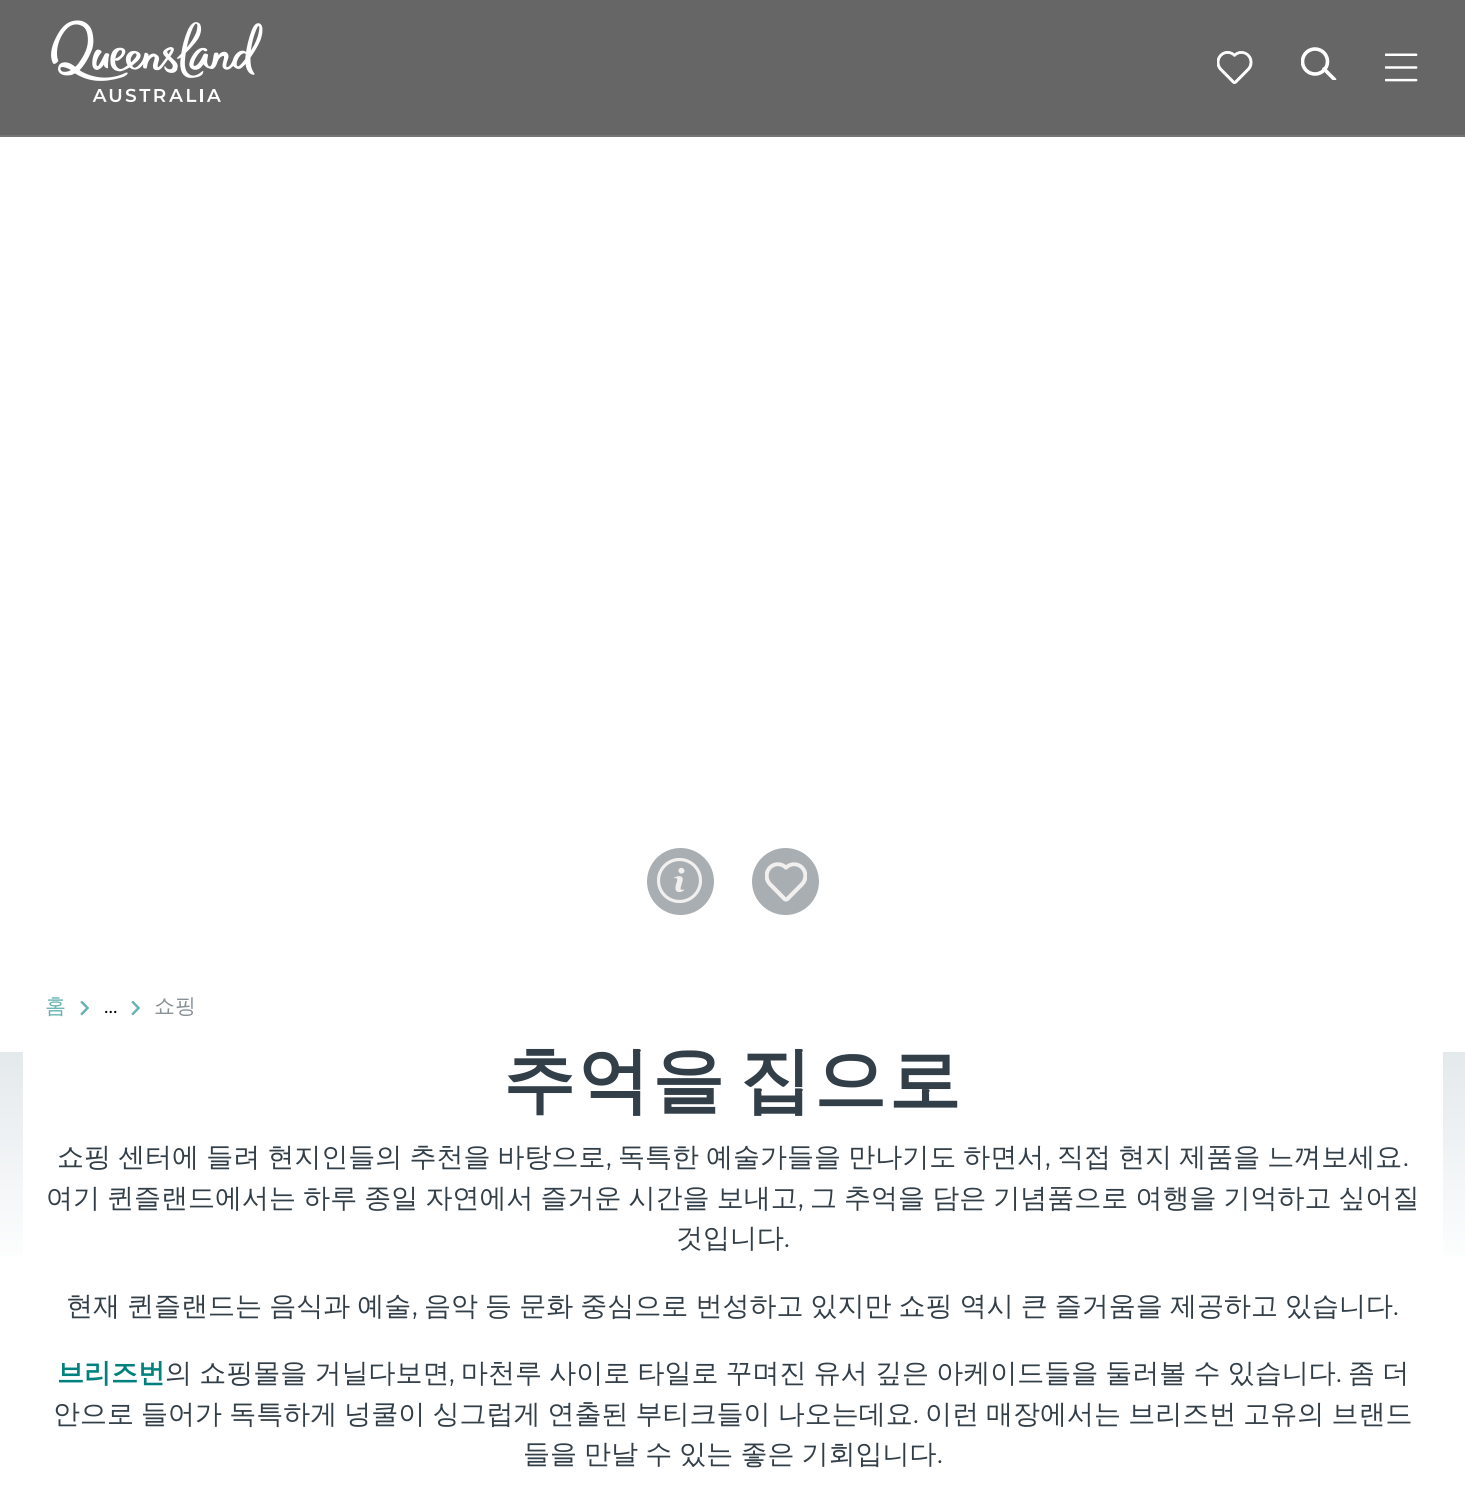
import math
import cairo

surface = cairo.ImageSurface(cairo.FORMAT_RGB24, 1465, 1502)
ctx = cairo.Context(surface)
options = cairo.FontOptions()
options.set_hint_metrics(cairo.HINT_METRICS_OFF)
options.set_hint_style(cairo.HINT_STYLE_NONE)
ctx.set_font_options(options)
ctx.set_miter_limit(4)


def spaced_text(x, y, s, letter, word):
    ctx.move_to(x, y)
    for ch in s:
        ctx.show_text(ch)
        ctx.rel_move_to(letter + word * (ch == ' '), 0)


def picture(path, x, y, w, h):
    ctx.save()
    ctx.set_source_surface(cairo.ImageSurface.create_from_png(path), x, y)
    ctx.rectangle(x, y, w, h)
    ctx.fill()
    ctx.restore()


ctx.set_source_rgb(1, 1, 1)
ctx.paint()
ctx.set_source_rgb(0.4, 0.4, 0.4)
ctx.rectangle(0, 0, 1465, 135)
ctx.fill()
ctx.set_source_rgb(0.451, 0.463, 0.471)
ctx.rectangle(0, 135, 1465, 2)
ctx.fill()
picture("img1.png", 51, 20, 212, 83)
picture("img2.png", 1217, 51, 36, 33)
ctx.save()
ctx.rectangle(1301, 44, 36, 36)
ctx.clip()
ctx.arc(1315, 61.5, 12.5, 0, 2 * math.pi)
ctx.set_source_rgb(1, 1, 1)
ctx.set_line_width(3.6)
ctx.stroke()
ctx.new_path()
ctx.move_to(1324, 69)
ctx.line_to(1334.5, 79.5)
ctx.set_line_cap(cairo.LINE_CAP_ROUND)
ctx.stroke()
ctx.restore()
picture("img3.png", 1385, 53, 33, 29)
ctx.set_source_rgb(0.659, 0.682, 0.698)
ctx.arc(680.5, 881.5, 33.5, 0, 2 * math.pi)
ctx.fill()
picture("img4.png", 657, 858, 45, 45)
ctx.arc(785.5, 881.5, 33.5, 0, 2 * math.pi)
ctx.fill()
picture("img5.png", 765, 862, 42, 40)
gradient = cairo.LinearGradient(733, 1052, 733, 1277)
gradient.add_color_stop_rgba(0, 0.894, 0.914, 0.925, 1)
gradient.add_color_stop_rgba(1, 1, 1, 1, 1)
ctx.set_source(gradient)
ctx.rectangle(0, 1052, 1465, 204)
ctx.fill()
ctx.set_source_rgb(1, 1, 1)
ctx.rectangle(23, 1052, 1420, 204)
ctx.fill()
ctx.select_font_face("WenQuanYi Zen Hei Medium")
ctx.set_font_size(21)
ctx.set_source_rgb(0.4, 0.702, 0.694)
ctx.move_to(45, 1013)
ctx.show_text("홈")
picture("img6.png", 80, 1001, 9, 15)
ctx.select_font_face("Montserrat")
ctx.set_source_rgb(0, 0, 0)
ctx.move_to(104, 1013)
ctx.show_text("...")
picture("img6.png", 131, 1001, 9, 15)
ctx.select_font_face("WenQuanYi Zen Hei Medium")
ctx.set_source_rgb(0.533, 0.569, 0.584)
ctx.move_to(154, 1013)
ctx.show_text("쇼핑")
ctx.select_font_face("WenQuanYi Zen Hei", cairo.FONT_SLANT_NORMAL, cairo.FONT_WEIGHT_BOLD)
ctx.set_font_size(72)
ctx.set_source_rgb(0.2, 0.247, 0.282)
spaced_text(503, 1105, "추억을 집으로", 2.5, -11)
ctx.select_font_face("WenQuanYi Zen Hei Medium")
ctx.set_font_size(27)
spaced_text(57, 1166, "쇼핑 센터에 들려 현지인들의 추천을 바탕으로", 0, -1)
ctx.select_font_face("Montserrat")
ctx.move_to(606, 1166)
ctx.show_text(",")
ctx.select_font_face("WenQuanYi Zen Hei Medium")
spaced_text(618, 1166, "독특한 예술가들을 만나기도 하면서", 0, -1)
ctx.select_font_face("Montserrat")
ctx.move_to(1045, 1166)
ctx.show_text(",")
ctx.select_font_face("WenQuanYi Zen Hei Medium")
spaced_text(1057, 1166, "직접 현지 제품을 느껴보세요", 0, -1)
ctx.select_font_face("Montserrat")
ctx.move_to(1403, 1166)
ctx.show_text(".")
ctx.select_font_face("WenQuanYi Zen Hei Medium")
spaced_text(46, 1207, "여기 퀸즐랜드에서는 하루 종일 자연에서 즐거운 시간을 보내고", 0, -1)
ctx.select_font_face("Montserrat")
ctx.move_to(798, 1207)
ctx.show_text(",")
ctx.select_font_face("WenQuanYi Zen Hei Medium")
spaced_text(810, 1207, "그 추억을 담은 기념품으로 여행을 기억하고 싶어질", 0, -1)
ctx.move_to(676, 1247)
ctx.show_text("것입니다")
ctx.select_font_face("Montserrat")
ctx.move_to(784, 1247)
ctx.show_text(".")
ctx.select_font_face("WenQuanYi Zen Hei Medium")
spaced_text(66, 1315, "현재 퀸즐랜드는 음식과 예술", 0, -1)
ctx.select_font_face("Montserrat")
ctx.move_to(412, 1315)
ctx.show_text(",")
ctx.select_font_face("WenQuanYi Zen Hei Medium")
spaced_text(424, 1315, "음악 등 문화 중심으로 번성하고 있지만 쇼핑 역시 큰 즐거움을 제공하고 있습니다", 0, -1)
ctx.select_font_face("Montserrat")
ctx.move_to(1393, 1315)
ctx.show_text(".")
ctx.select_font_face("WenQuanYi Zen Hei", cairo.FONT_SLANT_NORMAL, cairo.FONT_WEIGHT_BOLD)
ctx.set_source_rgb(0, 0.506, 0.49)
ctx.move_to(57, 1382)
ctx.show_text("브리즈번")
ctx.select_font_face("WenQuanYi Zen Hei Medium")
ctx.set_source_rgb(0.2, 0.247, 0.282)
spaced_text(165, 1382, "의 쇼핑몰을 거닐다보면", 0, -0.9)
ctx.select_font_face("Montserrat")
ctx.move_to(449, 1382)
ctx.show_text(",")
ctx.select_font_face("WenQuanYi Zen Hei Medium")
spaced_text(461, 1382, "마천루 사이로 타일로 꾸며진 유서 깊은 아케이드들을 둘러볼 수 있습니다", 0, -0.9)
ctx.select_font_face("Montserrat")
ctx.move_to(1336, 1382)
ctx.show_text(".")
ctx.select_font_face("WenQuanYi Zen Hei Medium")
spaced_text(1348, 1382, "좀 더", 0, -0.9)
spaced_text(53, 1423, "안으로 들어가 독특하게 넝쿨이 싱그럽게 연출된 부티크들이 나오는데요", 0, -1)
ctx.select_font_face("Montserrat")
ctx.move_to(913, 1423)
ctx.show_text(".")
ctx.select_font_face("WenQuanYi Zen Hei Medium")
spaced_text(925, 1423, "이런 매장에서는 브리즈번 고유의 브랜드", 0, -1)
spaced_text(523, 1463, "들을 만날 수 있는 좋은 기회입니다", 0, -1)
ctx.select_font_face("Montserrat")
ctx.move_to(937, 1463)
ctx.show_text(".")
surface.write_to_png("page.png")
